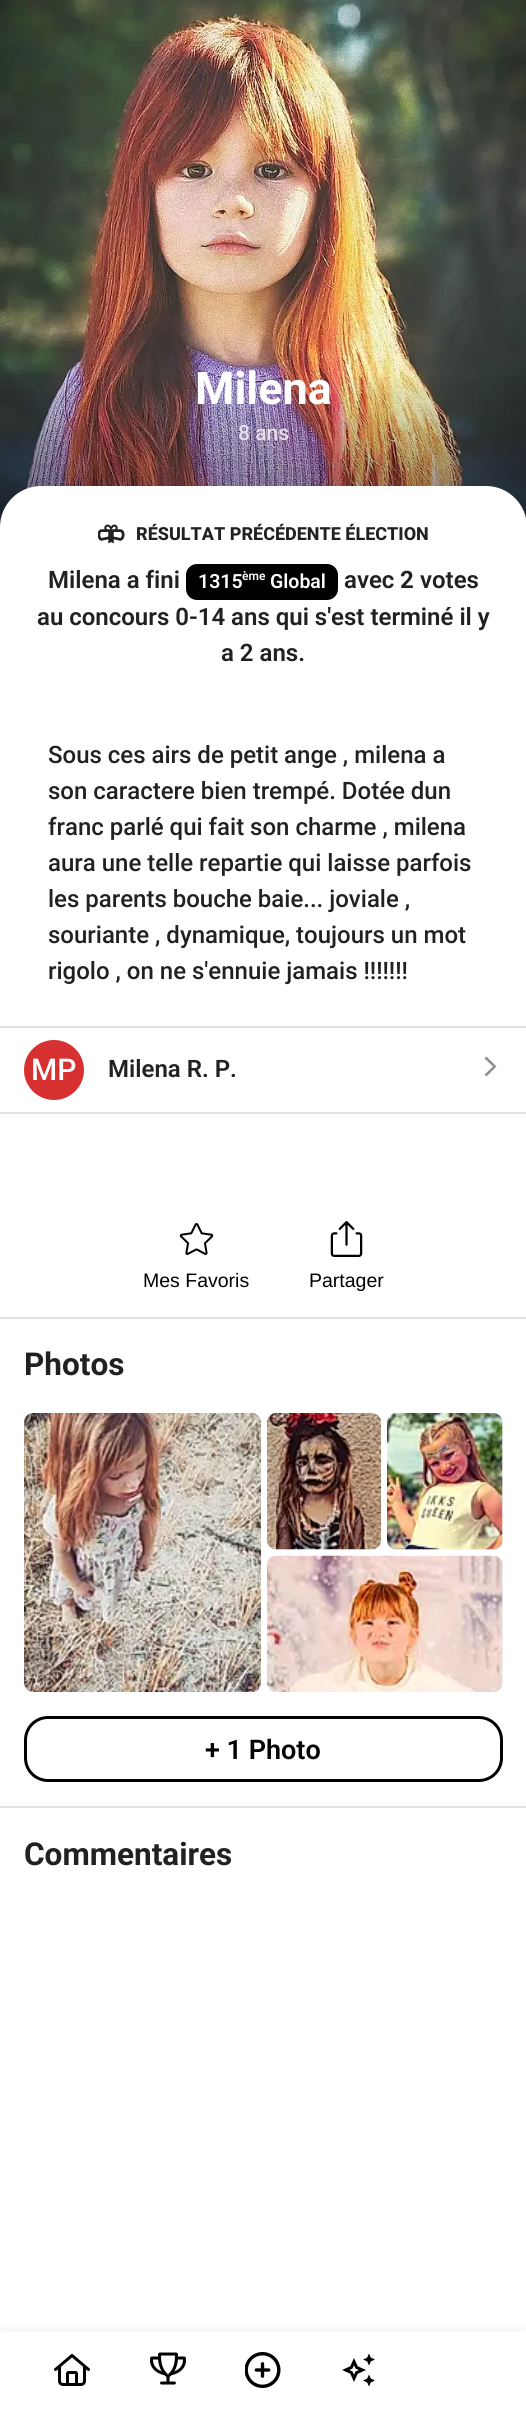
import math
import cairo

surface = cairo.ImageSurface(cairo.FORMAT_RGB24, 526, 2415)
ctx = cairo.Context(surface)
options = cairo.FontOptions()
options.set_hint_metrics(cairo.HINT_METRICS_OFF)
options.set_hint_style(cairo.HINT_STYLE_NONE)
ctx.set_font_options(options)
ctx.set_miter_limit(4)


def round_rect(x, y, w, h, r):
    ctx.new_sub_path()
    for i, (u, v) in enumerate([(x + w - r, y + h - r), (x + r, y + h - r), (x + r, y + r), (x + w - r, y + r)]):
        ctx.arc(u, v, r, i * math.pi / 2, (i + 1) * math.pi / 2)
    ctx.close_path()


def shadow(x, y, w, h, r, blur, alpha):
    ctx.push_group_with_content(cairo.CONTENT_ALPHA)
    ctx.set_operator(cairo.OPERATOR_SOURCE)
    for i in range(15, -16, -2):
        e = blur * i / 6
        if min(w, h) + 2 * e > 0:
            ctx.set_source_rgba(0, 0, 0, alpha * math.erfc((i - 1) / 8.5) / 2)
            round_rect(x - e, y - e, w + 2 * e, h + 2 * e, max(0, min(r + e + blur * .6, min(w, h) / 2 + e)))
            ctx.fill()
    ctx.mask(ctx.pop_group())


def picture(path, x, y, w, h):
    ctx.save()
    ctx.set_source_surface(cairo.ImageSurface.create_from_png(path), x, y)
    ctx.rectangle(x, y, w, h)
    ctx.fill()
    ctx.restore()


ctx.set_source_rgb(1, 1, 1)
ctx.paint()
picture("img1.png", 0, 0, 526, 527)
gradient = cairo.LinearGradient(263, 0, 263, 527)
gradient.add_color_stop_rgba(0.7, 0, 0, 0, 0)
gradient.add_color_stop_rgba(1, 0, 0, 0, 0.4)
ctx.set_source(gradient)
ctx.rectangle(0, 377, 526, 150)
ctx.fill()
ctx.select_font_face("Roboto", cairo.FONT_SLANT_NORMAL, cairo.FONT_WEIGHT_BOLD)
ctx.set_font_size(45)
ctx.set_source_rgb(1, 1, 1)
ctx.move_to(195, 404)
ctx.show_text("Milena")
ctx.select_font_face("Roboto Medium")
ctx.set_font_size(21)
ctx.set_source_rgb(0.894, 0.875, 0.914)
ctx.move_to(238, 440)
ctx.show_text("8 ans")
ctx.set_source_rgb(1, 1, 1)
ctx.new_path()
ctx.move_to(41, 486)
ctx.line_to(486, 486)
ctx.curve_to(508.5, 486, 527, 504.5, 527, 527)
ctx.line_to(0, 527)
ctx.curve_to(0, 504.5, 18.5, 486, 41, 486)
ctx.close_path()
ctx.fill()
picture("img2.png", 98, 524, 27, 20)
ctx.select_font_face("Roboto ExtraBold")
ctx.set_font_size(18)
ctx.set_source_rgb(0.129, 0.129, 0.129)
ctx.move_to(136, 540)
ctx.show_text("RÉSULTAT PRÉCÉDENTE ÉLECTION")
ctx.select_font_face("Roboto SemiBold")
ctx.set_font_size(24)
ctx.move_to(48, 588)
ctx.show_text("Milena a fini")
ctx.set_source_rgb(0, 0, 0)
round_rect(186, 564, 152, 36, 11)
ctx.fill()
ctx.set_font_size(19.5)
ctx.set_source_rgb(1, 1, 1)
ctx.move_to(198, 588)
ctx.show_text("1315")
ctx.set_font_size(12)
ctx.move_to(242, 580)
ctx.show_text("ème")
ctx.set_font_size(19.5)
ctx.move_to(270, 588)
ctx.show_text("Global")
ctx.set_font_size(24)
ctx.set_source_rgb(0.129, 0.129, 0.129)
ctx.move_to(344, 588)
ctx.show_text("avec")
ctx.select_font_face("Roboto", cairo.FONT_SLANT_NORMAL, cairo.FONT_WEIGHT_BOLD)
ctx.move_to(400, 588)
ctx.show_text("2")
ctx.select_font_face("Roboto SemiBold")
ctx.move_to(420, 588)
ctx.show_text("votes")
ctx.move_to(37, 625)
ctx.show_text("au concours 0-14 ans qui s'est terminé il y")
ctx.move_to(221, 661)
ctx.show_text("a 2 ans.")
ctx.select_font_face("Roboto Medium")
ctx.move_to(48, 763)
ctx.show_text("Sous ces airs de petit ange , milena a")
ctx.move_to(48, 799)
ctx.show_text("son caractere bien trempé. Dotée dun")
ctx.move_to(48, 835)
ctx.show_text("franc parlé qui fait son charme , milena")
ctx.move_to(48, 871)
ctx.show_text("aura une telle repartie qui laisse parfois")
ctx.move_to(48, 907)
ctx.show_text("les parents bouche baie... joviale ,")
ctx.move_to(48, 943)
ctx.show_text("souriante , dynamique, toujours un mot")
ctx.move_to(48, 979)
ctx.show_text("rigolo , on ne s'ennuie jamais !!!!!!!")
ctx.set_source_rgb(0.882, 0.882, 0.882)
ctx.rectangle(0, 1026, 526, 2)
ctx.fill()
ctx.set_source_rgb(0.839, 0.188, 0.192)
ctx.arc(54, 1070, 30, 0, 2 * math.pi)
ctx.fill()
ctx.set_font_size(30)
ctx.set_source_rgb(1, 1, 1)
ctx.move_to(31, 1080)
ctx.show_text("MP")
ctx.select_font_face("Roboto SemiBold")
ctx.set_font_size(24)
ctx.set_source_rgb(0.129, 0.129, 0.129)
ctx.move_to(108, 1077)
ctx.show_text("Milena R. P.")
ctx.set_source_rgb(0.569, 0.569, 0.569)
ctx.new_path()
ctx.move_to(484.5, 1074.5)
ctx.line_to(486.5, 1076.5)
ctx.line_to(496.5, 1066.5)
ctx.line_to(486.5, 1056.5)
ctx.line_to(484.5, 1058.5)
ctx.line_to(493, 1066.5)
ctx.close_path()
ctx.fill()
ctx.set_source_rgb(0.882, 0.882, 0.882)
ctx.rectangle(0, 1112, 526, 2)
ctx.fill()
picture("img3.png", 179, 1223, 35, 32)
ctx.select_font_face("Liberation Sans")
ctx.set_font_size(19.5)
ctx.set_source_rgb(0, 0, 0)
ctx.move_to(143, 1287)
ctx.show_text("Mes Favoris")
picture("img4.png", 330, 1221, 33, 36)
ctx.move_to(309, 1287)
ctx.show_text("Partager")
ctx.set_source_rgb(0.882, 0.882, 0.882)
ctx.rectangle(0, 1317, 526, 2)
ctx.fill()
ctx.select_font_face("Roboto", cairo.FONT_SLANT_NORMAL, cairo.FONT_WEIGHT_BOLD)
ctx.set_font_size(31.5)
ctx.set_source_rgb(0.129, 0.129, 0.129)
ctx.move_to(24, 1375)
ctx.show_text("Photos")
ctx.set_source_rgb(0.957, 0.961, 0.965)
round_rect(24, 1413, 237, 279, 9)
ctx.fill()
picture("img5.png", 24, 1413, 237, 279)
round_rect(267, 1413, 114, 137, 9)
ctx.fill()
picture("img6.png", 267, 1413, 114, 137)
round_rect(387, 1413, 116, 137, 9)
ctx.fill()
picture("img7.png", 387, 1413, 116, 137)
round_rect(267, 1556, 236, 136, 9)
ctx.fill()
picture("img8.png", 267, 1555, 236, 137)
round_rect(25.5, 1717.5, 476, 63, 22.5)
ctx.set_source_rgb(0, 0, 0)
ctx.set_line_width(3)
ctx.stroke()
ctx.select_font_face("Roboto SemiBold")
ctx.set_font_size(27)
ctx.move_to(205, 1759)
ctx.show_text("+ 1 Photo")
ctx.set_source_rgb(0.882, 0.882, 0.882)
ctx.rectangle(0, 1806, 526, 2)
ctx.fill()
ctx.select_font_face("Roboto", cairo.FONT_SLANT_NORMAL, cairo.FONT_WEIGHT_BOLD)
ctx.set_font_size(31.5)
ctx.set_source_rgb(0.129, 0.129, 0.129)
ctx.move_to(24, 1865)
ctx.show_text("Commentaires")
ctx.set_source_rgb(0, 0, 0)
shadow(0, 2333, 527, 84, 5, 6, 0.12)
ctx.set_source_rgb(1, 1, 1)
ctx.rectangle(0, 2331, 526, 84)
ctx.fill()
picture("img9.png", 54, 2354, 36, 32)
picture("img10.png", 150, 2352, 36, 33)
picture("img11.png", 245, 2352, 36, 36)
picture("img12.png", 342, 2353, 33, 34)
surface.write_to_png("page.png")
